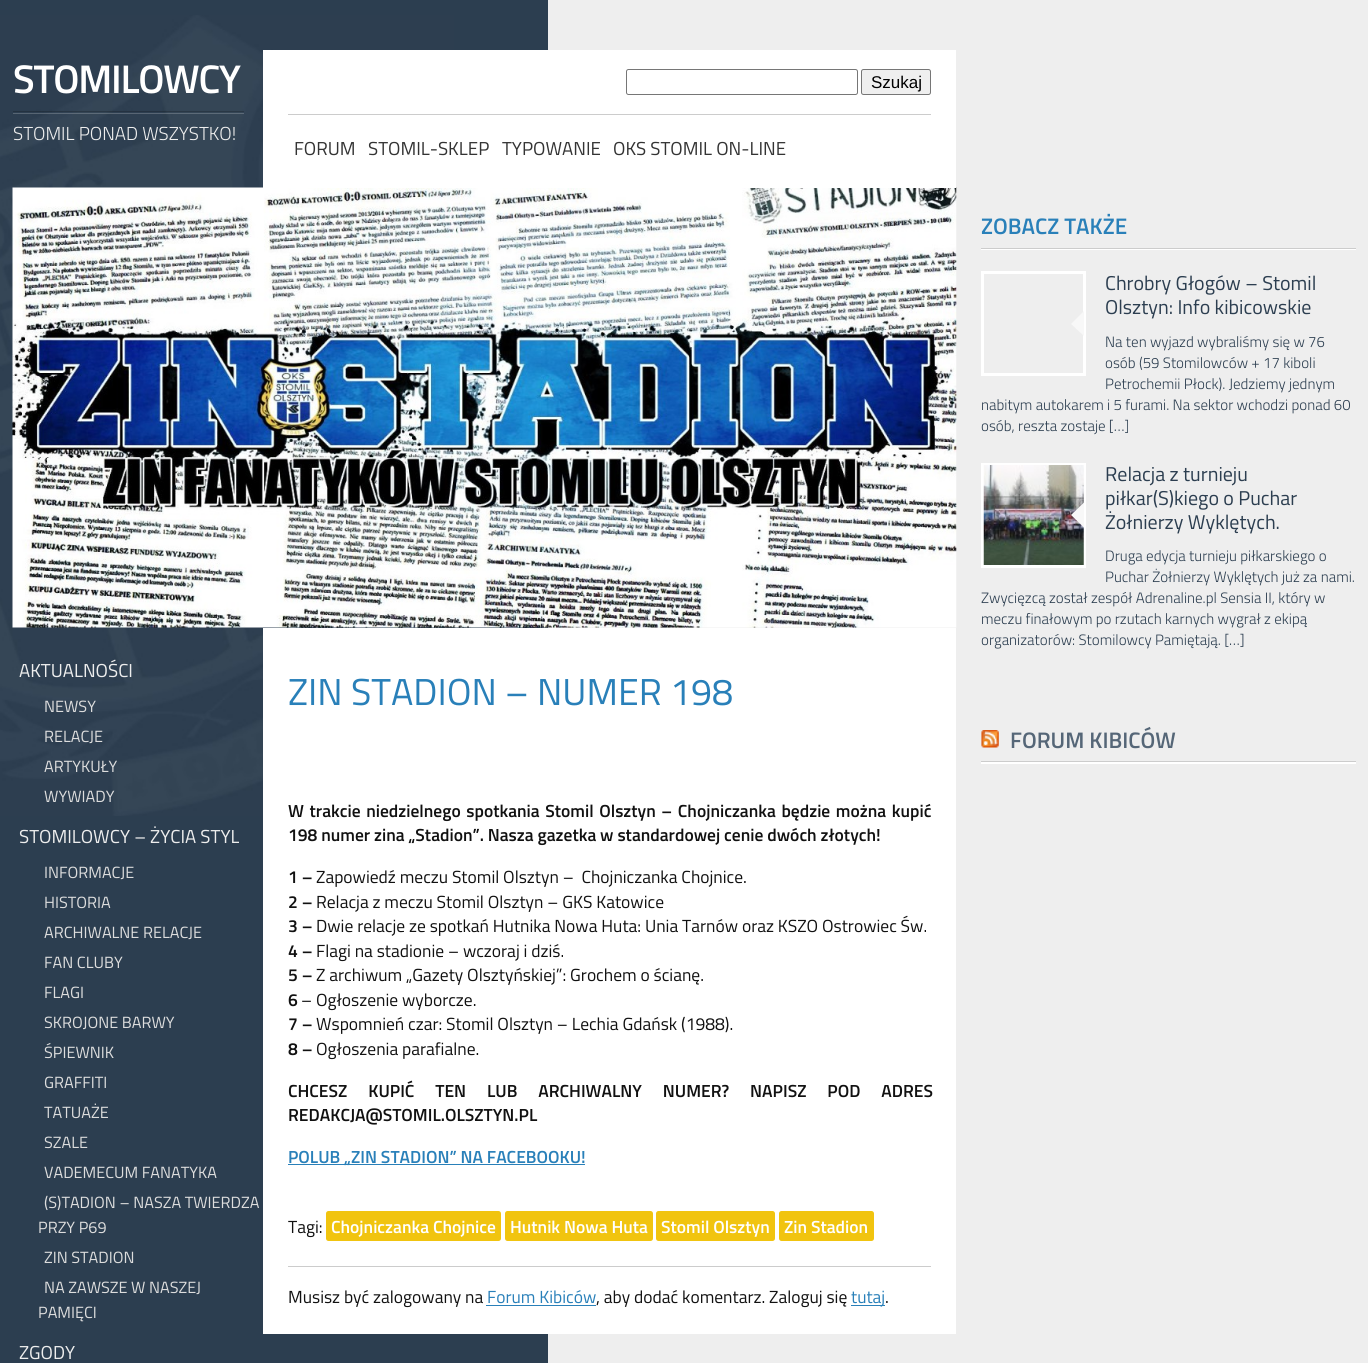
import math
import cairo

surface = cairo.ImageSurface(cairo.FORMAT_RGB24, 1368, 1363)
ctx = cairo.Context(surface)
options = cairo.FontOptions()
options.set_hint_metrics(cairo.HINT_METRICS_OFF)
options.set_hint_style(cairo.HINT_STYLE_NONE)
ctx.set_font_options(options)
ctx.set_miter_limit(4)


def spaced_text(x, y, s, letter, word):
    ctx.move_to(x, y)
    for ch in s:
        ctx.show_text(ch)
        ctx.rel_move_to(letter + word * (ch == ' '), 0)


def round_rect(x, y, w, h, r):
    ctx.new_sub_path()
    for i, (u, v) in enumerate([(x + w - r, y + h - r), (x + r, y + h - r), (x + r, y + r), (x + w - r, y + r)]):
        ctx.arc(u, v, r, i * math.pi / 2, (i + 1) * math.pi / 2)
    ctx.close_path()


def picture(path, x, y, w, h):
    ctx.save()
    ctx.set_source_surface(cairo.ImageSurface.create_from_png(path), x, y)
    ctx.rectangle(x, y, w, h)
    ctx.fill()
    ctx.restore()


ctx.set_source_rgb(0.933, 0.933, 0.933)
ctx.paint()
ctx.set_source_rgb(0.173, 0.243, 0.314)
ctx.rectangle(0, 0, 548, 1363)
ctx.fill()
picture("img1.png", 0, 15, 454, 801)
ctx.select_font_face("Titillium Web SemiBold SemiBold")
ctx.set_font_size(40)
ctx.set_source_rgb(1, 1, 1)
spaced_text(13, 93, "STOMILOWCY", -1.25, 0)
ctx.set_source_rgba(0, 0, 0, 0.2)
ctx.new_path()
ctx.move_to(13, 111)
ctx.line_to(13, 112)
ctx.line_to(244, 112)
ctx.line_to(244, 145)
ctx.line_to(244, 111)
ctx.close_path()
ctx.fill()
ctx.set_source_rgba(1, 1, 1, 0.2)
ctx.rectangle(13, 113, 231, 1)
ctx.fill()
ctx.select_font_face("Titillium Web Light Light")
ctx.set_font_size(18.75)
ctx.set_source_rgb(0.933, 0.933, 0.933)
ctx.move_to(13, 140)
ctx.show_text("STOMIL PONAD WSZYSTKO!")
picture("img4.png", 12, 187, 945, 441)
ctx.set_source_rgb(1, 1, 1)
ctx.rectangle(263, 50, 693, 138)
ctx.fill()
round_rect(626.5, 69.5, 231, 25, 2)
ctx.set_source_rgb(0.463, 0.463, 0.463)
ctx.set_line_width(1)
ctx.stroke()
ctx.set_source_rgb(0.937, 0.937, 0.937)
round_rect(861.5, 69.5, 69, 25, 2)
ctx.fill_preserve()
ctx.set_source_rgb(0.463, 0.463, 0.463)
ctx.stroke()
ctx.select_font_face("Liberation Sans")
ctx.set_font_size(17)
ctx.set_source_rgb(0, 0, 0)
ctx.move_to(871, 88)
ctx.show_text("Szukaj")
ctx.set_source_rgb(0.8, 0.8, 0.8)
ctx.rectangle(288, 114, 643, 1)
ctx.fill()
ctx.select_font_face("Titillium Web")
ctx.set_font_size(18.75)
ctx.set_source_rgb(0.2, 0.2, 0.2)
ctx.move_to(294, 155)
ctx.show_text("FORUM")
ctx.move_to(368, 155)
ctx.show_text("STOMIL-SKLEP")
ctx.move_to(502, 155)
ctx.show_text("TYPOWANIE")
ctx.move_to(613, 155)
ctx.show_text("OKS STOMIL ON-LINE")
ctx.set_source_rgb(1, 1, 1)
ctx.new_path()
ctx.move_to(981, 211)
ctx.line_to(981, 250)
ctx.line_to(1356, 250)
ctx.line_to(1356, 249)
ctx.line_to(981, 249)
ctx.close_path()
ctx.fill()
ctx.set_source_rgb(0.8, 0.8, 0.8)
ctx.rectangle(981, 248, 375, 1)
ctx.fill()
ctx.select_font_face("Titillium Web SemiBold SemiBold")
ctx.set_font_size(22.5)
ctx.set_source_rgb(0.161, 0.502, 0.725)
ctx.move_to(981, 234)
ctx.show_text("ZOBACZ TAKŻE")
ctx.rectangle(982.5, 272.5, 102, 102)
ctx.set_source_rgb(1, 1, 1)
ctx.set_line_width(3)
ctx.stroke()
ctx.set_source_rgb(0.969, 0.969, 0.969)
ctx.new_path()
ctx.move_to(1084, 311)
ctx.line_to(1084, 336)
ctx.line_to(1071, 324)
ctx.close_path()
ctx.fill()
ctx.select_font_face("Titillium Web")
ctx.set_font_size(20)
ctx.set_source_rgb(0.173, 0.243, 0.314)
ctx.move_to(1105, 290)
ctx.show_text("Chrobry Głogów – Stomil")
ctx.move_to(1105, 314)
ctx.show_text("Olsztyn: Info kibicowskie")
ctx.select_font_face("Titillium Web Light Light")
ctx.set_font_size(15)
ctx.move_to(1105, 347)
ctx.show_text("Na ten wyjazd wybraliśmy się w 76")
ctx.move_to(1105, 368)
ctx.show_text("osób (59 Stomilowców + 17 kiboli")
ctx.move_to(1105, 389)
ctx.show_text("Petrochemii Płock). Jedziemy jednym")
ctx.move_to(981, 410)
ctx.show_text("nabitym autokarem i 5 furami. Na sektor wchodzi ponad 60")
ctx.move_to(981, 431)
ctx.show_text("osób, reszta zostaje […]")
ctx.rectangle(982.5, 464.5, 102, 102)
ctx.set_source_rgb(1, 1, 1)
ctx.stroke()
picture("img2.png", 983, 465, 101, 100)
ctx.set_source_rgb(0.969, 0.969, 0.969)
ctx.new_path()
ctx.move_to(1084, 502.5)
ctx.line_to(1084, 527.5)
ctx.line_to(1071, 515)
ctx.close_path()
ctx.fill()
ctx.select_font_face("Titillium Web")
ctx.set_font_size(20)
ctx.set_source_rgb(0.173, 0.243, 0.314)
ctx.move_to(1105, 481)
ctx.show_text("Relacja z turnieju")
ctx.move_to(1105, 505)
ctx.show_text("piłkar(S)kiego o Puchar")
ctx.move_to(1105, 529)
ctx.show_text("Żołnierzy Wyklętych.")
ctx.select_font_face("Titillium Web Light Light")
ctx.set_font_size(15)
ctx.move_to(1105, 561)
ctx.show_text("Druga edycja turnieju piłkarskiego o")
ctx.move_to(1105, 582)
ctx.show_text("Puchar Żołnierzy Wyklętych już za nami.")
ctx.move_to(981, 603)
ctx.show_text("Zwycięzcą został zespół Adrenaline.pl Sensia II, który w")
ctx.move_to(981, 624)
ctx.show_text("meczu finałowym po rzutach karnych wygrał z ekipą")
ctx.move_to(981, 645)
ctx.show_text("organizatorów: Stomilowcy Pamiętają. […]")
ctx.set_source_rgb(1, 1, 1)
ctx.new_path()
ctx.move_to(981, 725)
ctx.line_to(981, 764)
ctx.line_to(1356, 764)
ctx.line_to(1356, 762)
ctx.line_to(981, 762)
ctx.close_path()
ctx.fill()
ctx.set_source_rgb(0.8, 0.8, 0.8)
ctx.rectangle(981, 761, 375, 1)
ctx.fill()
picture("img3.png", 981, 730, 18, 18)
ctx.select_font_face("Titillium Web SemiBold SemiBold")
ctx.set_font_size(22.5)
ctx.set_source_rgb(0.333, 0.4, 0.467)
ctx.move_to(1010, 748)
ctx.show_text("FORUM KIBICÓW")
ctx.select_font_face("Titillium Web")
ctx.set_font_size(18.75)
ctx.set_source_rgb(0.933, 0.933, 0.933)
ctx.move_to(19, 677)
ctx.show_text("AKTUALNOŚCI")
ctx.set_font_size(16.25)
ctx.set_source_rgb(0.867, 0.867, 0.867)
ctx.move_to(44, 712)
ctx.show_text("NEWSY")
ctx.move_to(44, 742)
ctx.show_text("RELACJE")
ctx.move_to(44, 772)
ctx.show_text("ARTYKUŁY")
ctx.move_to(44, 802)
ctx.show_text("WYWIADY")
ctx.set_font_size(18.75)
ctx.set_source_rgb(0.933, 0.933, 0.933)
ctx.move_to(19, 843)
ctx.show_text("STOMILOWCY – ŻYCIA STYL")
ctx.set_font_size(16.25)
ctx.set_source_rgb(0.867, 0.867, 0.867)
ctx.move_to(44, 878)
ctx.show_text("INFORMACJE")
ctx.move_to(44, 908)
ctx.show_text("HISTORIA")
ctx.move_to(44, 938)
ctx.show_text("ARCHIWALNE RELACJE")
ctx.move_to(44, 968)
ctx.show_text("FAN CLUBY")
ctx.move_to(44, 998)
ctx.show_text("FLAGI")
ctx.move_to(44, 1028)
ctx.show_text("SKROJONE BARWY")
ctx.move_to(44, 1058)
ctx.show_text("ŚPIEWNIK")
ctx.move_to(44, 1088)
ctx.show_text("GRAFFITI")
ctx.move_to(44, 1118)
ctx.show_text("TATUAŻE")
ctx.move_to(44, 1148)
ctx.show_text("SZALE")
ctx.move_to(44, 1178)
ctx.show_text("VADEMECUM FANATYKA")
ctx.move_to(44, 1208)
ctx.show_text("(S)TADION – NASZA TWIERDZA")
ctx.move_to(38, 1233)
ctx.show_text("PRZY P69")
ctx.move_to(44, 1263)
ctx.show_text("ZIN STADION")
ctx.move_to(44, 1293)
ctx.show_text("NA ZAWSZE W NASZEJ")
ctx.move_to(38, 1318)
ctx.show_text("PAMIĘCI")
ctx.set_font_size(18.75)
ctx.set_source_rgb(0.933, 0.933, 0.933)
ctx.move_to(19, 1359)
ctx.show_text("ZGODY")
ctx.set_source_rgb(1, 1, 1)
ctx.rectangle(263, 628, 693, 706)
ctx.fill()
ctx.set_font_size(37.5)
ctx.set_source_rgb(0.161, 0.502, 0.725)
ctx.move_to(288, 705)
ctx.show_text("ZIN STADION – NUMER 198")
ctx.select_font_face("Titillium Web SemiBold SemiBold")
ctx.set_font_size(17.5)
ctx.set_source_rgb(0.067, 0.067, 0.067)
spaced_text(288, 817, "W trakcie niedzielnego spotkania Stomil Olsztyn – Chojniczanka będzie można kupić", 0, 1.75)
ctx.move_to(288, 841)
ctx.show_text("198 numer zina „Stadion”. Nasza gazetka w standardowej cenie dwóch złotych!")
ctx.move_to(288, 883)
ctx.show_text("1 –")
ctx.select_font_face("Titillium Web")
ctx.move_to(316, 883)
ctx.show_text("Zapowiedź meczu Stomil Olsztyn –  Chojniczanka Chojnice.")
ctx.select_font_face("Titillium Web SemiBold SemiBold")
ctx.move_to(288, 908)
ctx.show_text("2 –")
ctx.select_font_face("Titillium Web")
ctx.move_to(316, 908)
ctx.show_text("Relacja z meczu Stomil Olsztyn – GKS Katowice")
ctx.select_font_face("Titillium Web SemiBold SemiBold")
ctx.move_to(288, 932)
ctx.show_text("3 –")
ctx.select_font_face("Titillium Web")
ctx.move_to(316, 932)
ctx.show_text("Dwie relacje ze spotkań Hutnika Nowa Huta: Unia Tarnów oraz KSZO Ostrowiec Św.")
ctx.select_font_face("Titillium Web SemiBold SemiBold")
ctx.move_to(288, 957)
ctx.show_text("4 –")
ctx.select_font_face("Titillium Web")
ctx.move_to(316, 957)
ctx.show_text("Flagi na stadionie – wczoraj i dziś.")
ctx.select_font_face("Titillium Web SemiBold SemiBold")
ctx.move_to(288, 981)
ctx.show_text("5 –")
ctx.select_font_face("Titillium Web")
ctx.move_to(316, 981)
ctx.show_text("Z archiwum „Gazety Olsztyńskiej”: Grochem o ścianę.")
ctx.select_font_face("Titillium Web SemiBold SemiBold")
ctx.move_to(288, 1006)
ctx.show_text("6")
ctx.select_font_face("Titillium Web")
ctx.move_to(301, 1006)
ctx.show_text("– Ogłoszenie wyborcze.")
ctx.select_font_face("Titillium Web SemiBold SemiBold")
ctx.move_to(288, 1030)
ctx.show_text("7 –")
ctx.select_font_face("Titillium Web")
ctx.move_to(316, 1030)
ctx.show_text("Wspomnień czar: Stomil Olsztyn – Lechia Gdańsk (1988).")
ctx.select_font_face("Titillium Web SemiBold SemiBold")
ctx.move_to(288, 1055)
ctx.show_text("8 –")
ctx.select_font_face("Titillium Web")
ctx.move_to(316, 1055)
ctx.show_text("Ogłoszenia parafialne.")
ctx.select_font_face("Titillium Web SemiBold SemiBold")
spaced_text(288, 1097, "CHCESZ KUPIĆ TEN LUB ARCHIWALNY NUMER? NAPISZ POD ADRES", 0, 17)
ctx.move_to(288, 1121)
ctx.show_text("REDAKCJA@STOMIL.OLSZTYN.PL")
ctx.set_source_rgb(0.161, 0.502, 0.725)
ctx.rectangle(288, 1164, 297, 1)
ctx.fill()
ctx.move_to(288, 1163)
ctx.show_text("POLUB „ZIN STADION” NA FACEBOOKU!")
ctx.select_font_face("Titillium Web")
ctx.set_source_rgb(0.067, 0.067, 0.067)
ctx.move_to(288, 1233)
ctx.show_text("Tagi:")
ctx.set_source_rgb(0.945, 0.769, 0.059)
round_rect(326, 1211, 175, 30, 2.5)
ctx.fill()
ctx.select_font_face("Titillium Web SemiBold SemiBold")
ctx.set_source_rgb(1, 1, 1)
ctx.move_to(331, 1233)
ctx.show_text("Chojniczanka Chojnice")
ctx.set_source_rgb(0.945, 0.769, 0.059)
round_rect(505, 1211, 148, 30, 2.5)
ctx.fill()
ctx.set_source_rgb(1, 1, 1)
ctx.move_to(510, 1233)
ctx.show_text("Hutnik Nowa Huta")
ctx.set_source_rgb(0.945, 0.769, 0.059)
round_rect(656, 1211, 119, 30, 2.5)
ctx.fill()
ctx.set_source_rgb(1, 1, 1)
ctx.move_to(661, 1233)
ctx.show_text("Stomil Olsztyn")
ctx.set_source_rgb(0.945, 0.769, 0.059)
round_rect(779, 1211, 95, 30, 2.5)
ctx.fill()
ctx.set_source_rgb(1, 1, 1)
ctx.move_to(784, 1233)
ctx.show_text("Zin Stadion")
ctx.set_source_rgb(0.8, 0.8, 0.8)
ctx.rectangle(288, 1266, 643, 1)
ctx.fill()
ctx.select_font_face("Titillium Web")
ctx.set_source_rgb(0.067, 0.067, 0.067)
ctx.move_to(288, 1303)
ctx.show_text("Musisz być zalogowany na")
ctx.set_source_rgb(0.161, 0.502, 0.725)
ctx.move_to(487, 1303)
ctx.show_text("Forum Kibiców")
ctx.rectangle(486, 1305, 110, 1)
ctx.fill()
ctx.set_source_rgb(0.067, 0.067, 0.067)
ctx.move_to(596, 1303)
ctx.show_text(", aby dodać komentarz. Zaloguj się")
ctx.set_source_rgb(0.161, 0.502, 0.725)
ctx.rectangle(851, 1305, 34, 1)
ctx.fill()
ctx.move_to(851, 1303)
ctx.show_text("tutaj")
ctx.set_source_rgb(0.067, 0.067, 0.067)
ctx.move_to(885, 1303)
ctx.show_text(".")
surface.write_to_png("page.png")
